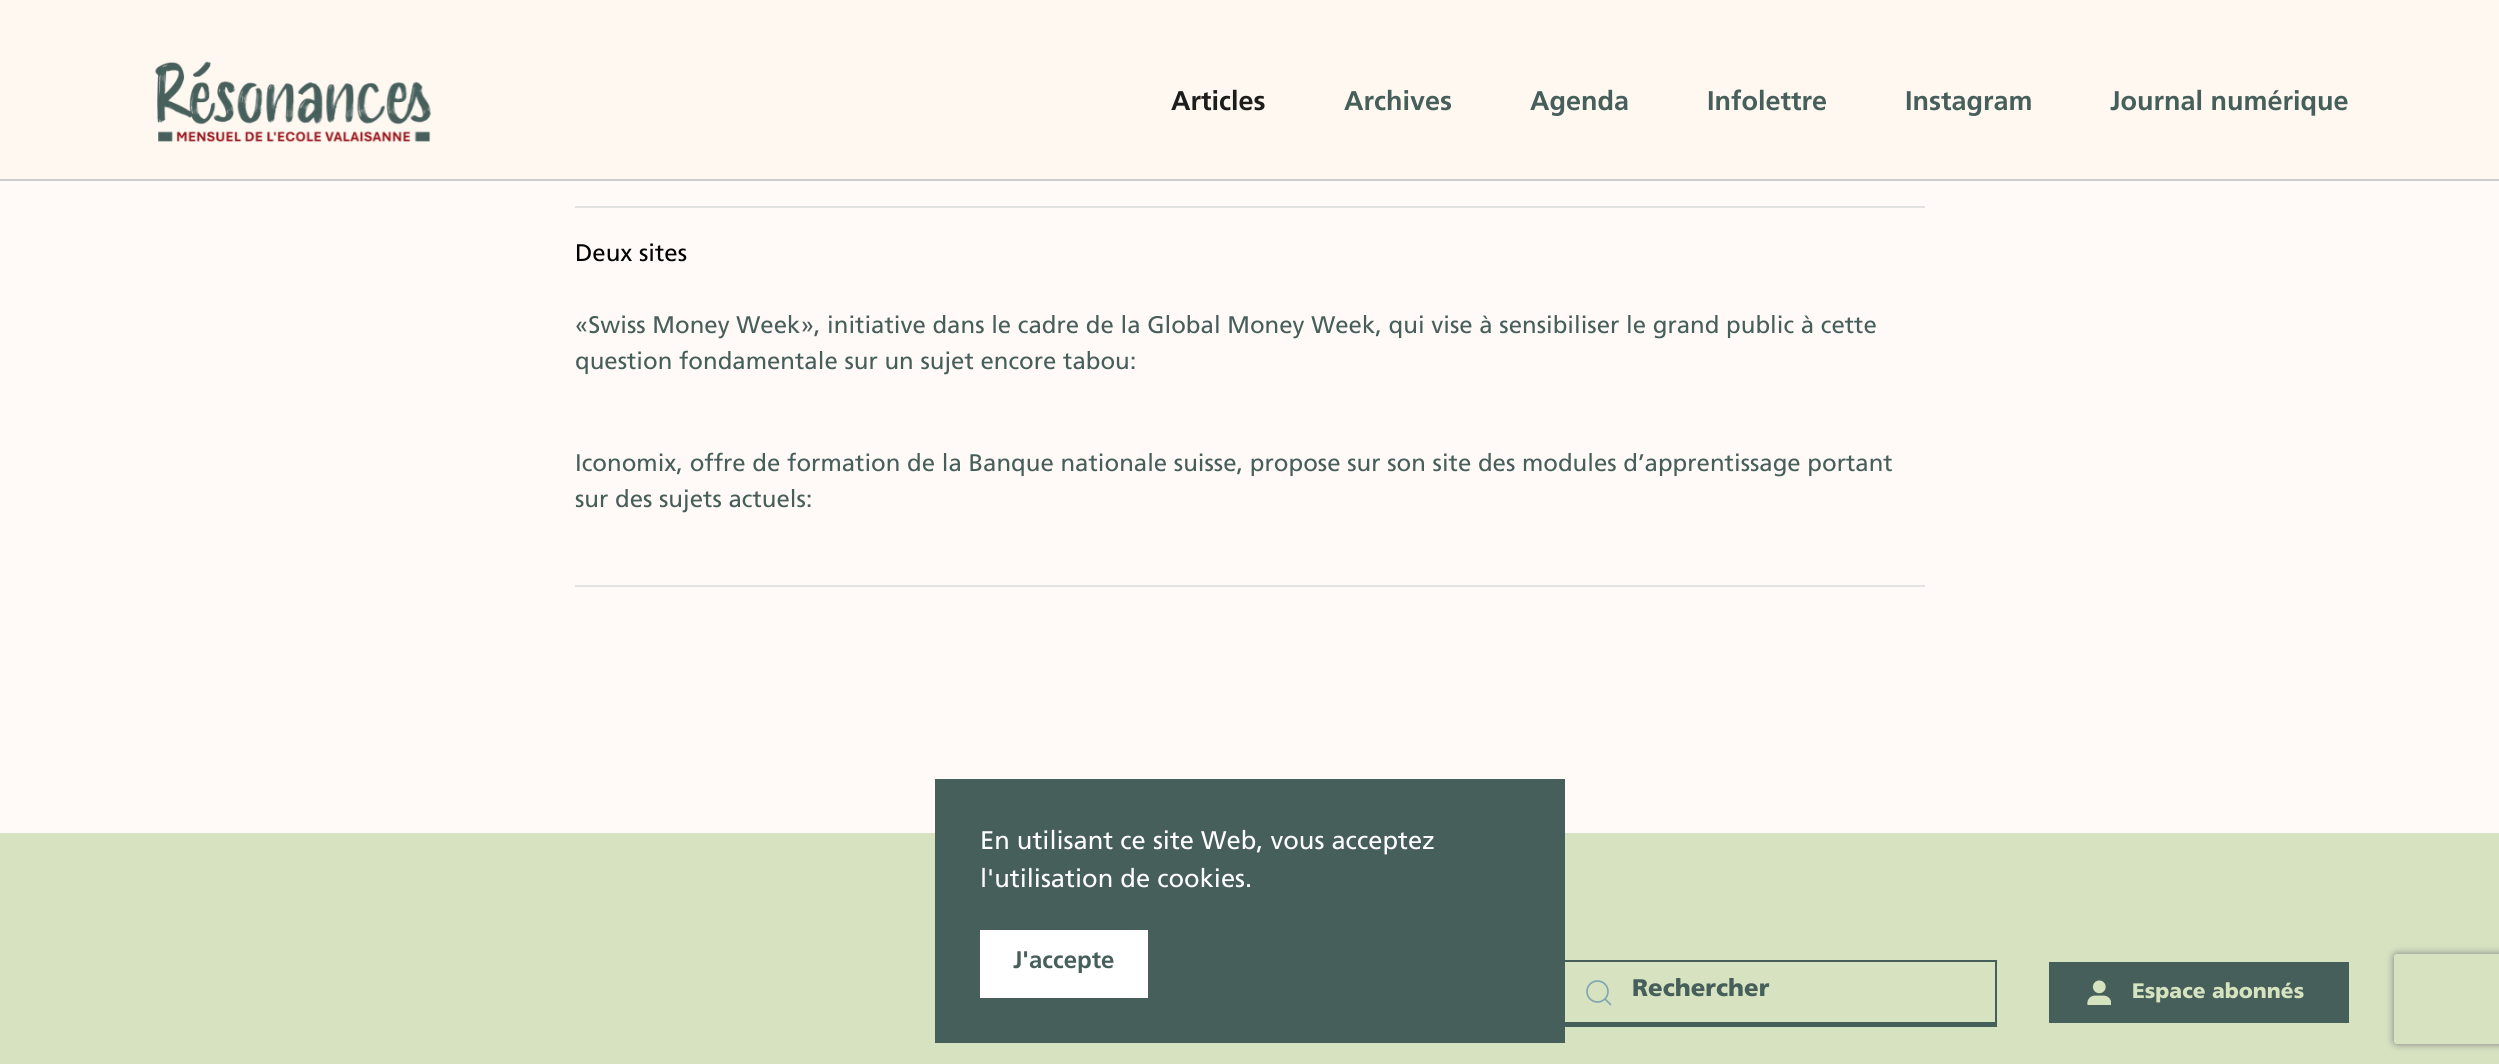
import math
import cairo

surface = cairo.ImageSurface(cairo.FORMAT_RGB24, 2499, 1064)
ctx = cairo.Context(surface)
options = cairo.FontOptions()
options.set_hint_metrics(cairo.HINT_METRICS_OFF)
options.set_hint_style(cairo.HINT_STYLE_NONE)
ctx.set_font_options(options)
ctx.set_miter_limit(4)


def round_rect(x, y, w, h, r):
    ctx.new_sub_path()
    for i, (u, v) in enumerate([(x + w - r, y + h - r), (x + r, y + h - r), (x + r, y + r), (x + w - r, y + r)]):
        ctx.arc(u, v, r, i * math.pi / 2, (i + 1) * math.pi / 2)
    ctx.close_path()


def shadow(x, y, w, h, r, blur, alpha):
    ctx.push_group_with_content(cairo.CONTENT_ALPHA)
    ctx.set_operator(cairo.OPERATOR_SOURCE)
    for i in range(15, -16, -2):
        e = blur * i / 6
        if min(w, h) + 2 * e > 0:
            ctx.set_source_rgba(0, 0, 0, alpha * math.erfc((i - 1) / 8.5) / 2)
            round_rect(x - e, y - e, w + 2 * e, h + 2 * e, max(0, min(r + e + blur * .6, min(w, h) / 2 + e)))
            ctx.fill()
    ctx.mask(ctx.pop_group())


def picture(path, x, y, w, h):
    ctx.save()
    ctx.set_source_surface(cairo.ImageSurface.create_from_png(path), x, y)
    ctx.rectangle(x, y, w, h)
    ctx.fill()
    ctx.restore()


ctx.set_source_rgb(1, 0.98, 0.969)
ctx.paint()
ctx.set_source_rgb(0.996, 0.969, 0.945)
ctx.rectangle(0, 0, 2499, 179)
ctx.fill()
ctx.set_source_rgb(0.804, 0.804, 0.804)
ctx.rectangle(0, 179, 2499, 2)
ctx.fill()
picture("img1.png", 155, 61, 277, 81)
ctx.select_font_face("Frutiger", cairo.FONT_SLANT_NORMAL, cairo.FONT_WEIGHT_BOLD)
ctx.set_font_size(27)
ctx.set_source_rgb(0.114, 0.114, 0.106)
ctx.move_to(1171, 110)
ctx.show_text("Articles")
ctx.set_source_rgb(0.278, 0.373, 0.357)
ctx.move_to(1344, 110)
ctx.show_text("Archives")
ctx.move_to(1530, 110)
ctx.show_text("Agenda")
ctx.move_to(1707, 110)
ctx.show_text("Infolettre")
ctx.move_to(1905, 110)
ctx.show_text("Instagram")
ctx.move_to(2110, 110)
ctx.show_text("Journal numérique")
ctx.set_source_rgb(0.886, 0.886, 0.886)
ctx.rectangle(575, 206, 1350, 2)
ctx.fill()
ctx.select_font_face("Frutiger")
ctx.set_font_size(24)
ctx.set_source_rgb(0, 0, 0)
ctx.move_to(575, 261)
ctx.show_text("Deux sites")
ctx.set_source_rgb(0.278, 0.373, 0.357)
ctx.move_to(575, 333)
ctx.show_text("«Swiss Money Week», initiative dans le cadre de la Global Money Week, qui vise à sensibiliser le grand public à cette")
ctx.move_to(575, 369)
ctx.show_text("question fondamentale sur un sujet encore tabou:")
ctx.move_to(575, 471)
ctx.show_text("Iconomix, offre de formation de la Banque nationale suisse, propose sur son site des modules d’apprentissage portant")
ctx.move_to(575, 507)
ctx.show_text("sur des sujets actuels:")
ctx.set_source_rgb(0.886, 0.886, 0.886)
ctx.rectangle(575, 585, 1350, 2)
ctx.fill()
ctx.set_source_rgb(0.839, 0.886, 0.753)
ctx.rectangle(0, 833, 2499, 231)
ctx.fill()
ctx.arc(1597.5, 991.5, 10.5, 0, 2 * math.pi)
ctx.set_source_rgb(0.514, 0.647, 0.69)
ctx.set_line_width(1.7)
ctx.stroke()
ctx.new_path()
ctx.move_to(1605, 999)
ctx.line_to(1611, 1005)
ctx.close_path()
ctx.stroke()
ctx.set_source_rgb(0.278, 0.373, 0.357)
ctx.rectangle(1565, 960, 432, 2)
ctx.fill()
ctx.rectangle(1995, 960, 2, 66)
ctx.fill()
ctx.rectangle(1565, 1022, 432, 5)
ctx.fill()
ctx.select_font_face("Frutiger Black")
ctx.move_to(1632, 996)
ctx.show_text("Rechercher")
ctx.rectangle(2049, 962, 300, 61)
ctx.fill()
picture("img2.png", 2087, 980, 24, 25)
ctx.set_font_size(21)
ctx.set_source_rgb(0.835, 0.894, 0.749)
ctx.move_to(2132, 998)
ctx.show_text("Espace abonnés")
ctx.set_source_rgb(0.278, 0.373, 0.357)
ctx.rectangle(935, 779, 630, 264)
ctx.fill()
ctx.select_font_face("Frutiger")
ctx.set_font_size(25.5)
ctx.set_source_rgb(1, 1, 1)
ctx.move_to(980, 849)
ctx.show_text("En utilisant ce site Web, vous acceptez")
ctx.move_to(980, 887)
ctx.show_text("l'utilisation de cookies.")
ctx.rectangle(980, 930, 168, 68)
ctx.fill()
ctx.select_font_face("Frutiger", cairo.FONT_SLANT_NORMAL, cairo.FONT_WEIGHT_BOLD)
ctx.set_font_size(24)
ctx.set_source_rgb(0.278, 0.373, 0.357)
ctx.move_to(1013, 968)
ctx.show_text("J'accepte")
ctx.save()
ctx.set_fill_rule(cairo.FILL_RULE_EVEN_ODD)
ctx.new_path()
ctx.move_to(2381, 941)
ctx.line_to(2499, 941)
ctx.line_to(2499, 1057)
ctx.line_to(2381, 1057)
ctx.close_path()
ctx.move_to(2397, 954)
ctx.line_to(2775, 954)
ctx.curve_to(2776.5, 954, 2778, 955.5, 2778, 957)
ctx.line_to(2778, 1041)
ctx.curve_to(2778, 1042.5, 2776.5, 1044, 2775, 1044)
ctx.line_to(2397, 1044)
ctx.curve_to(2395.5, 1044, 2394, 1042.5, 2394, 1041)
ctx.line_to(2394, 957)
ctx.curve_to(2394, 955.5, 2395.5, 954, 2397, 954)
ctx.close_path()
ctx.clip()
ctx.set_source_rgb(0.502, 0.502, 0.502)
shadow(2394, 954, 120, 90, 3, 4, 1)
ctx.restore()
surface.write_to_png("page.png")
